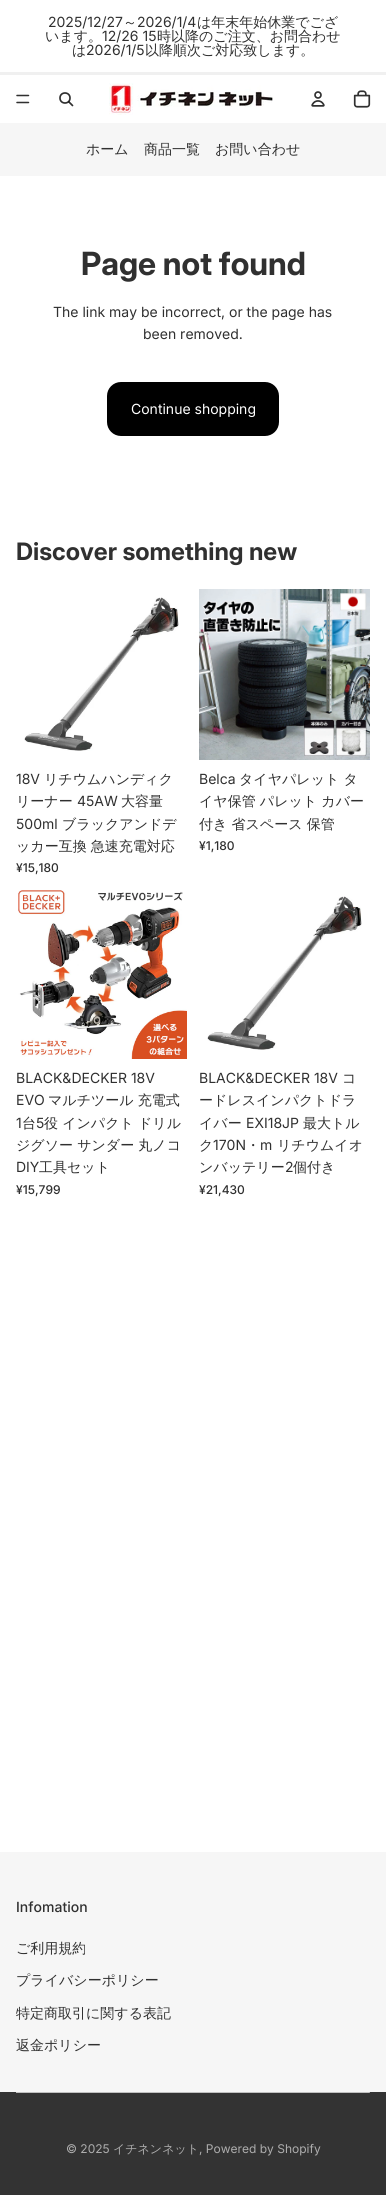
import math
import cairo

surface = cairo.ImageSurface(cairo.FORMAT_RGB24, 386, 2195)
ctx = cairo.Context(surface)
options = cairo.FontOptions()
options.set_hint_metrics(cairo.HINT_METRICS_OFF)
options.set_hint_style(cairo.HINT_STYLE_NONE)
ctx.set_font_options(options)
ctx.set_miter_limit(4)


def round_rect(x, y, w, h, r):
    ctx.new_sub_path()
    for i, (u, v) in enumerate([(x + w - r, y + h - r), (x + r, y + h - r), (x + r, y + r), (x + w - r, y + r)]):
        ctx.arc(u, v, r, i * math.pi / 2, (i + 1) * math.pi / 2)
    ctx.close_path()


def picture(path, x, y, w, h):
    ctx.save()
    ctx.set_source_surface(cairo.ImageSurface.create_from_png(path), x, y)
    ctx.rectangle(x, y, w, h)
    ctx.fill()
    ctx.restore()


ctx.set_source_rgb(1, 1, 1)
ctx.paint()
ctx.set_source_rgb(0.941, 0.941, 0.941)
ctx.rectangle(0, 72, 386, 3)
ctx.fill()
ctx.select_font_face("Inter")
ctx.set_font_size(14)
ctx.set_source_rgb(0.188, 0.188, 0.188)
ctx.move_to(48, 27)
ctx.show_text("2025/12/27")
ctx.select_font_face("WenQuanYi Zen Hei Medium")
ctx.move_to(123, 27)
ctx.show_text("～")
ctx.select_font_face("Inter")
ctx.move_to(137, 27)
ctx.show_text("2026/1/4")
ctx.select_font_face("WenQuanYi Zen Hei Medium")
ctx.move_to(197, 27)
ctx.show_text("は年末年始休業でござ")
ctx.move_to(45, 41)
ctx.show_text("います。")
ctx.select_font_face("Inter")
ctx.move_to(102, 41)
ctx.show_text("12/26 15")
ctx.select_font_face("WenQuanYi Zen Hei Medium")
ctx.move_to(157, 41)
ctx.show_text("時以降のご注文、お問合わせ")
ctx.move_to(72, 55)
ctx.show_text("は")
ctx.select_font_face("Inter")
ctx.move_to(86, 55)
ctx.show_text("2026/1/5")
ctx.select_font_face("WenQuanYi Zen Hei Medium")
ctx.move_to(145, 55)
ctx.show_text("以降順次ご対応致します。")
ctx.new_path()
ctx.move_to(17, 95.5)
ctx.line_to(28.5, 95.5)
ctx.move_to(17, 102.5)
ctx.line_to(28.5, 102.5)
ctx.set_line_width(1.5)
ctx.set_line_cap(cairo.LINE_CAP_ROUND)
ctx.stroke()
ctx.arc(65, 98, 5, 0, 2 * math.pi)
ctx.set_line_width(1.7)
ctx.set_line_cap(cairo.LINE_CAP_BUTT)
ctx.stroke()
ctx.new_path()
ctx.move_to(69, 102)
ctx.line_to(72.5, 105.5)
ctx.set_source_rgba(0, 0, 0, 0.81)
ctx.set_line_cap(cairo.LINE_CAP_ROUND)
ctx.set_line_join(cairo.LINE_JOIN_ROUND)
ctx.stroke()
picture("img1.png", 109, 83, 164, 32)
picture("img2.png", 311, 91, 14, 16)
picture("img3.png", 353, 90, 18, 18)
ctx.set_source_rgb(0.961, 0.961, 0.961)
ctx.rectangle(0, 123, 386, 53)
ctx.fill()
ctx.set_source_rgb(0.188, 0.188, 0.188)
ctx.move_to(86, 154)
ctx.show_text("ホーム")
ctx.move_to(144, 154)
ctx.show_text("商品一覧")
ctx.move_to(215, 154)
ctx.show_text("お問い合わせ")
ctx.select_font_face("Inter", cairo.FONT_SLANT_NORMAL, cairo.FONT_WEIGHT_BOLD)
ctx.set_font_size(32)
ctx.move_to(81, 275)
ctx.show_text("Page not found")
ctx.select_font_face("Inter")
ctx.set_font_size(14)
ctx.move_to(53, 317)
ctx.show_text("The link may be incorrect, or the page has")
ctx.move_to(143, 339)
ctx.show_text("been removed.")
ctx.set_source_rgb(0, 0, 0)
round_rect(107, 382, 172, 54, 14)
ctx.fill()
ctx.set_source_rgb(1, 1, 1)
ctx.move_to(131, 414)
ctx.show_text("Continue shopping")
ctx.select_font_face("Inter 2", cairo.FONT_SLANT_NORMAL, cairo.FONT_WEIGHT_BOLD)
ctx.set_font_size(24)
ctx.set_source_rgb(0.188, 0.188, 0.188)
ctx.move_to(16, 560)
ctx.show_text("Discover something new")
picture("img4.png", 24, 597, 155, 154)
ctx.select_font_face("Inter")
ctx.set_font_size(14)
ctx.move_to(16, 784)
ctx.show_text("18V")
ctx.select_font_face("WenQuanYi Zen Hei Medium")
ctx.move_to(44, 784)
ctx.show_text("リチウムハンディク")
ctx.move_to(16, 806)
ctx.show_text("リーナー")
ctx.select_font_face("Inter")
ctx.move_to(77, 806)
ctx.show_text("45AW")
ctx.select_font_face("WenQuanYi Zen Hei Medium")
ctx.move_to(121, 806)
ctx.show_text("大容量")
ctx.select_font_face("Inter")
ctx.move_to(16, 829)
ctx.show_text("500ml")
ctx.select_font_face("WenQuanYi Zen Hei Medium")
ctx.move_to(62, 829)
ctx.show_text("ブラックアンドデ")
ctx.move_to(16, 851)
ctx.show_text("ッカー互換 急速充電対応")
ctx.select_font_face("Inter Medium")
ctx.set_font_size(12)
ctx.move_to(16, 872)
ctx.show_text("¥15,180")
picture("img5.png", 199, 589, 171, 171)
ctx.select_font_face("Inter")
ctx.set_font_size(14)
ctx.move_to(199, 784)
ctx.show_text("Belca")
ctx.select_font_face("WenQuanYi Zen Hei Medium")
ctx.move_to(239, 784)
ctx.show_text("タイヤパレット タ")
ctx.move_to(199, 806)
ctx.show_text("イヤ保管 パレット カバー")
ctx.move_to(199, 829)
ctx.show_text("付き 省スペース 保管")
ctx.select_font_face("Inter Medium")
ctx.set_font_size(12)
ctx.move_to(199, 850)
ctx.show_text("¥1,180")
picture("img6.png", 18, 890, 169, 169)
ctx.select_font_face("Inter")
ctx.set_font_size(14)
ctx.move_to(16, 1083)
ctx.show_text("BLACK&DECKER 18V")
ctx.move_to(16, 1105)
ctx.show_text("EVO")
ctx.select_font_face("WenQuanYi Zen Hei Medium")
ctx.move_to(48, 1105)
ctx.show_text("マルチツール 充電式")
ctx.select_font_face("Inter")
ctx.move_to(16, 1128)
ctx.show_text("1")
ctx.select_font_face("WenQuanYi Zen Hei Medium")
ctx.move_to(22, 1128)
ctx.show_text("台")
ctx.select_font_face("Inter")
ctx.move_to(36, 1128)
ctx.show_text("5")
ctx.select_font_face("WenQuanYi Zen Hei Medium")
ctx.move_to(44, 1128)
ctx.show_text("役 インパクト ドリル")
ctx.move_to(16, 1150)
ctx.show_text("ジグソー サンダー 丸ノコ")
ctx.select_font_face("Inter")
ctx.move_to(16, 1172)
ctx.show_text("DIY")
ctx.select_font_face("WenQuanYi Zen Hei Medium")
ctx.move_to(39, 1172)
ctx.show_text("工具セット")
ctx.select_font_face("Inter Medium")
ctx.set_font_size(12)
ctx.move_to(16, 1194)
ctx.show_text("¥15,799")
picture("img7.png", 207, 896, 155, 154)
ctx.select_font_face("Inter")
ctx.set_font_size(14)
ctx.move_to(199, 1083)
ctx.show_text("BLACK&DECKER 18V")
ctx.select_font_face("WenQuanYi Zen Hei Medium")
ctx.move_to(342, 1083)
ctx.show_text("コ")
ctx.move_to(199, 1105)
ctx.show_text("ードレスインパクトドラ")
ctx.move_to(199, 1128)
ctx.show_text("イバー")
ctx.select_font_face("Inter")
ctx.move_to(246, 1128)
ctx.show_text("EXI18JP")
ctx.select_font_face("WenQuanYi Zen Hei Medium")
ctx.move_to(303, 1128)
ctx.show_text("最大トル")
ctx.move_to(199, 1150)
ctx.show_text("ク")
ctx.select_font_face("Inter")
ctx.move_to(213, 1150)
ctx.show_text("170N")
ctx.select_font_face("WenQuanYi Zen Hei Medium")
ctx.move_to(246, 1150)
ctx.show_text("・")
ctx.select_font_face("Inter")
ctx.move_to(260, 1150)
ctx.show_text("m")
ctx.select_font_face("WenQuanYi Zen Hei Medium")
ctx.move_to(277, 1150)
ctx.show_text("リチウムイオ")
ctx.move_to(199, 1172)
ctx.show_text("ンバッテリー")
ctx.select_font_face("Inter")
ctx.move_to(285, 1172)
ctx.show_text("2")
ctx.select_font_face("WenQuanYi Zen Hei Medium")
ctx.move_to(293, 1172)
ctx.show_text("個付き")
ctx.select_font_face("Inter Medium")
ctx.set_font_size(12)
ctx.move_to(199, 1194)
ctx.show_text("¥21,430")
ctx.set_source_rgb(0.961, 0.961, 0.961)
ctx.rectangle(0, 1852, 386, 240)
ctx.fill()
ctx.set_font_size(14)
ctx.set_source_rgb(0.188, 0.188, 0.188)
ctx.move_to(16, 1912)
ctx.show_text("Infomation")
ctx.select_font_face("WenQuanYi Zen Hei Medium")
ctx.move_to(16, 1953)
ctx.show_text("ご利用規約")
ctx.move_to(16, 1985)
ctx.show_text("プライバシーポリシー")
ctx.move_to(16, 2018)
ctx.show_text("特定商取引に関する表記")
ctx.move_to(16, 2050)
ctx.show_text("返金ポリシー")
ctx.set_source_rgb(0.2, 0.2, 0.2)
ctx.rectangle(0, 2092, 386, 103)
ctx.fill()
ctx.set_source_rgb(0.753, 0.753, 0.753)
ctx.new_path()
ctx.move_to(370, 2092)
ctx.line_to(370, 2093)
ctx.line_to(369, 2092)
ctx.close_path()
ctx.fill()
ctx.set_source_rgba(1, 1, 1, 0.69)
ctx.new_path()
ctx.move_to(370, 2093)
ctx.line_to(16, 2093)
ctx.line_to(16, 2092)
ctx.line_to(369, 2092)
ctx.close_path()
ctx.fill()
ctx.select_font_face("Inter")
ctx.set_font_size(12)
ctx.set_source_rgb(0.678, 0.678, 0.678)
ctx.move_to(66, 2153)
ctx.show_text("© 2025")
ctx.select_font_face("WenQuanYi Zen Hei Medium")
ctx.move_to(113, 2153)
ctx.show_text("イチネンネット")
ctx.select_font_face("Inter")
ctx.move_to(199, 2153)
ctx.show_text(", Powered by Shopify")
surface.write_to_png("page.png")
